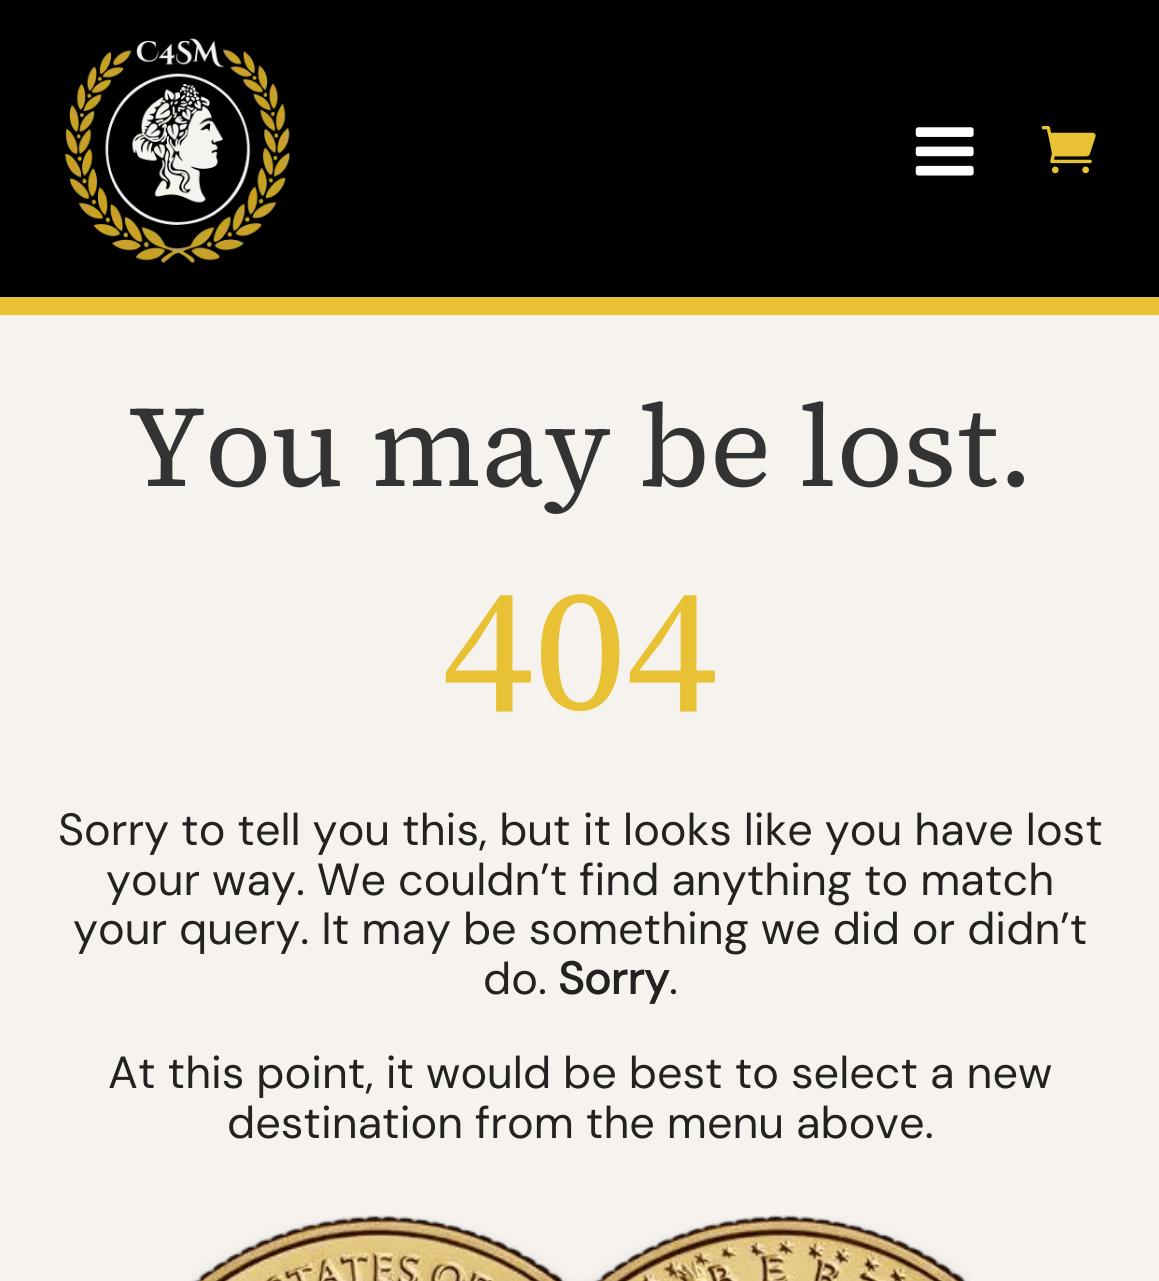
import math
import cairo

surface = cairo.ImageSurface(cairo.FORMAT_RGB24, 1159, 1281)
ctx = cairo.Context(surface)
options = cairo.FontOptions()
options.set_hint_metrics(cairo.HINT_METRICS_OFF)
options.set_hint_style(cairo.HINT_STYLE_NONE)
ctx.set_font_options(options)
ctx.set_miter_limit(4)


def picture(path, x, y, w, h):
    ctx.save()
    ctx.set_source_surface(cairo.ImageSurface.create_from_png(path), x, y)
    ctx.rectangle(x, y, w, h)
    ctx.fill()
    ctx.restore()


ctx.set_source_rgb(0, 0, 0)
ctx.paint()
ctx.set_source_rgb(0.91, 0.761, 0.204)
ctx.rectangle(0, 297, 1159, 18)
ctx.fill()
picture("img1.png", 65, 38, 225, 226)
picture("img2.png", 915, 127, 59, 49)
picture("img3.png", 1041, 126, 55, 48)
ctx.set_source_rgb(0.961, 0.953, 0.933)
ctx.rectangle(0, 315, 1159, 966)
ctx.fill()
ctx.select_font_face("Source Serif 4")
ctx.set_font_size(115.25)
ctx.set_source_rgb(0.2, 0.2, 0.2)
ctx.move_to(128, 486)
ctx.show_text("You may be lost.")
ctx.set_font_size(174)
ctx.set_source_rgb(0.91, 0.761, 0.204)
ctx.move_to(442, 709)
ctx.show_text("404")
ctx.select_font_face("DM Sans")
ctx.set_font_size(45)
ctx.set_source_rgb(0.141, 0.129, 0.129)
ctx.move_to(58, 845)
ctx.show_text("Sorry to tell you this, but it looks like you have lost")
ctx.move_to(106, 895)
ctx.show_text("your way. We couldn’t find anything to match")
ctx.move_to(73, 944)
ctx.show_text("your query. It may be something we did or didn’t")
ctx.move_to(483, 994)
ctx.show_text("do.")
ctx.select_font_face("DM Sans", cairo.FONT_SLANT_NORMAL, cairo.FONT_WEIGHT_BOLD)
ctx.move_to(558, 994)
ctx.show_text("Sorry")
ctx.select_font_face("DM Sans")
ctx.move_to(669, 994)
ctx.show_text(".")
ctx.move_to(108, 1088)
ctx.show_text("At this point, it would be best to select a new")
ctx.move_to(227, 1138)
ctx.show_text("destination from the menu above.")
picture("img4.png", 191, 1215, 779, 66)
surface.write_to_png("page.png")
